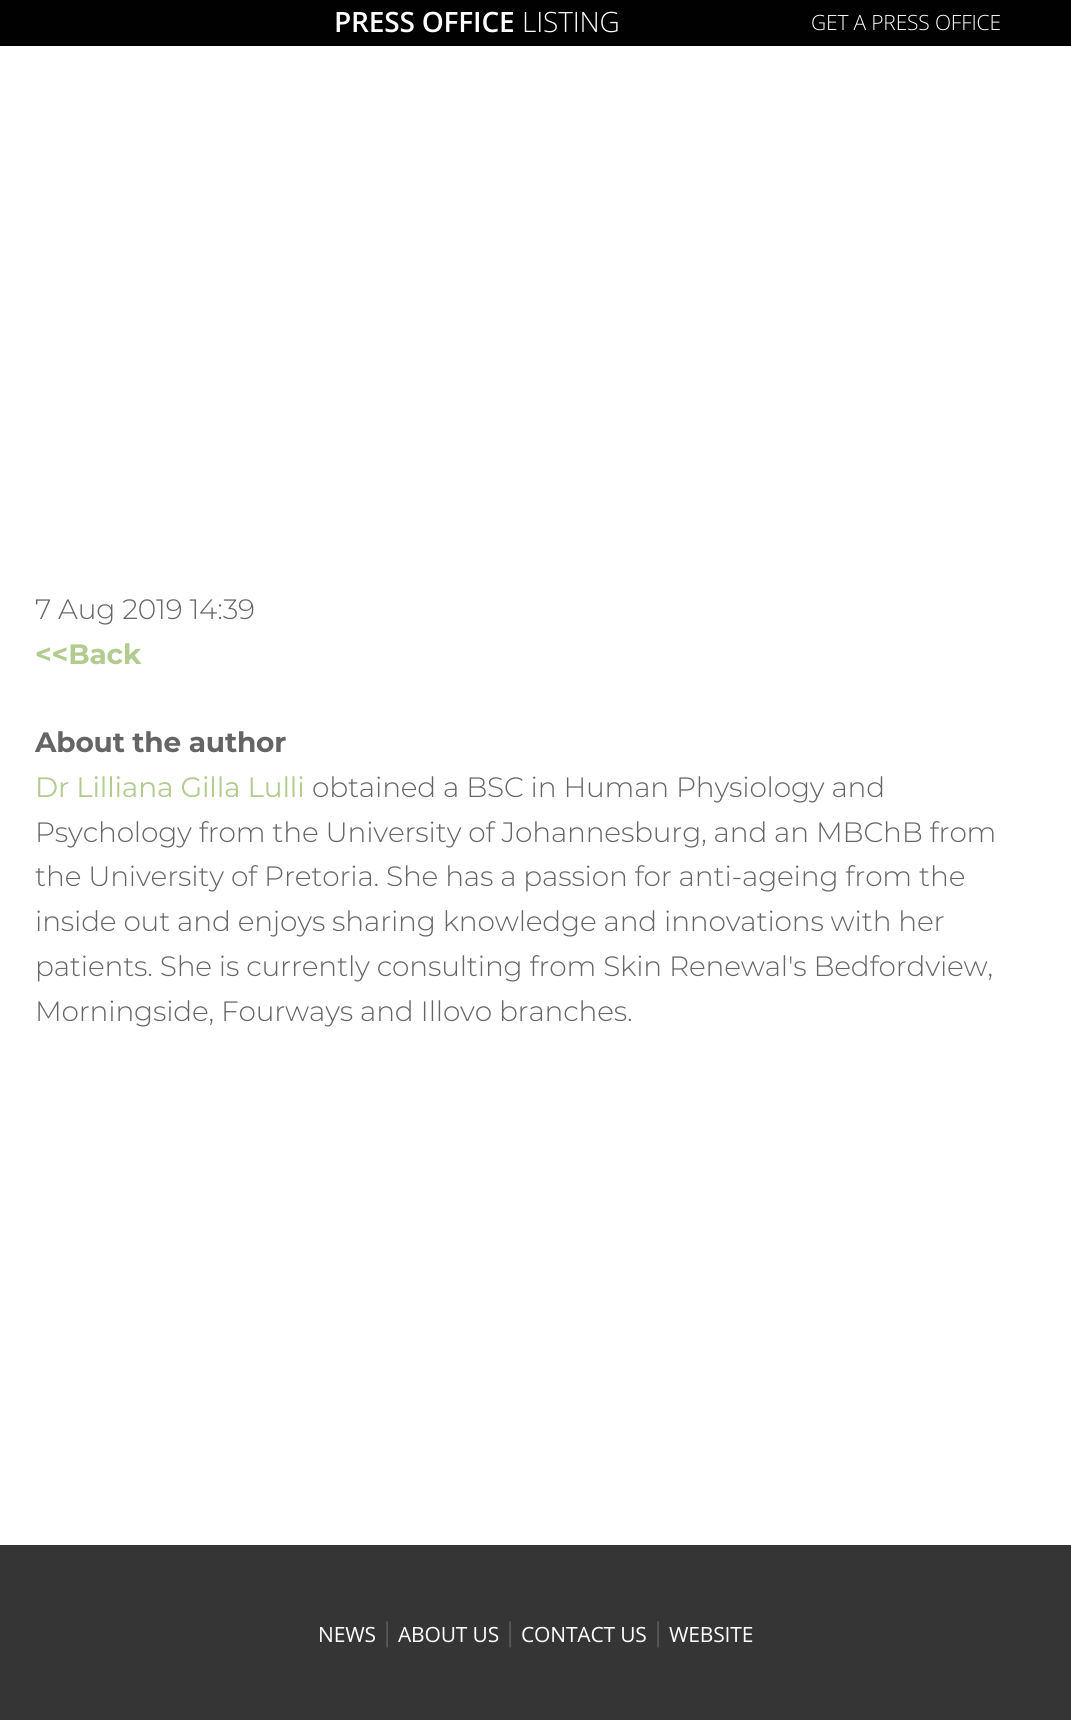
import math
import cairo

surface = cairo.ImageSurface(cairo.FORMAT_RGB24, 1071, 1720)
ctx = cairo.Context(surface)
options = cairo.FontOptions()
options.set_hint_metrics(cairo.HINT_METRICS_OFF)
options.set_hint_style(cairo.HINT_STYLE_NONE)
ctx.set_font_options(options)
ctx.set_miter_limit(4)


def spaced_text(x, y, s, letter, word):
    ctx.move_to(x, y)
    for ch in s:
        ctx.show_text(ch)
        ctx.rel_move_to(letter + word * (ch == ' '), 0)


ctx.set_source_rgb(1, 1, 1)
ctx.paint()
ctx.set_source_rgb(0.004, 0.004, 0.004)
ctx.rectangle(0, 0, 1071, 46)
ctx.fill()
ctx.select_font_face("Open Sans SemiBold")
ctx.set_font_size(28)
ctx.set_source_rgb(1, 1, 1)
spaced_text(334, 32, "PRESS OFFICE", -0.18, 0)
ctx.select_font_face("Open Sans Light")
spaced_text(522, 32, "LISTING", -0.18, 0)
ctx.set_font_size(21)
spaced_text(811, 30, "GET A PRESS OFFICE", -0.18, 0)
ctx.select_font_face("Montserrat Light")
ctx.set_font_size(28)
ctx.set_source_rgb(0.396, 0.396, 0.396)
spaced_text(35, 619, "7 Aug 2019 14:39", -0.18, 0)
ctx.select_font_face("Montserrat", cairo.FONT_SLANT_NORMAL, cairo.FONT_WEIGHT_BOLD)
ctx.set_source_rgb(0.698, 0.796, 0.557)
spaced_text(35, 664, "<<Back", -0.18, 0)
ctx.set_source_rgb(0.396, 0.396, 0.396)
spaced_text(35, 752, "About the author", -0.18, 0)
ctx.select_font_face("Montserrat")
ctx.set_source_rgb(0.698, 0.796, 0.557)
spaced_text(35, 797, "Dr Lilliana Gilla Lulli", -0.18, 0)
ctx.select_font_face("Montserrat Light")
ctx.set_source_rgb(0.396, 0.396, 0.396)
spaced_text(312, 797, "obtained a BSC in Human Physiology and", -0.18, 0)
spaced_text(35, 842, "Psychology from the University of Johannesburg, and an MBChB from", -0.18, 0)
spaced_text(35, 886, "the University of Pretoria. She has a passion for anti-ageing from the", -0.18, 0)
spaced_text(35, 931, "inside out and enjoys sharing knowledge and innovations with her", -0.18, 0)
spaced_text(35, 976, "patients. She is currently consulting from Skin Renewal's Bedfordview,", -0.18, 0)
spaced_text(35, 1021, "Morningside, Fourways and Illovo branches.", -0.18, 0)
ctx.set_source_rgb(0.208, 0.208, 0.208)
ctx.rectangle(0, 1545, 1071, 175)
ctx.fill()
ctx.select_font_face("Open Sans")
ctx.set_font_size(21)
ctx.set_source_rgb(1, 1, 1)
spaced_text(318, 1642, "NEWS", -0.18, 0)
ctx.select_font_face("Montserrat Light")
ctx.set_font_size(28)
ctx.set_source_rgb(0.396, 0.396, 0.396)
spaced_text(383, 1642, "|", -0.18, 0)
ctx.select_font_face("Open Sans")
ctx.set_font_size(21)
ctx.set_source_rgb(1, 1, 1)
spaced_text(398, 1642, "ABOUT US", -0.18, 0)
ctx.select_font_face("Montserrat Light")
ctx.set_font_size(28)
ctx.set_source_rgb(0.396, 0.396, 0.396)
spaced_text(506, 1642, "|", -0.18, 0)
ctx.select_font_face("Open Sans")
ctx.set_font_size(21)
ctx.set_source_rgb(1, 1, 1)
spaced_text(521, 1642, "CONTACT US", -0.18, 0)
ctx.select_font_face("Montserrat Light")
ctx.set_font_size(28)
ctx.set_source_rgb(0.396, 0.396, 0.396)
spaced_text(654, 1642, "|", -0.18, 0)
ctx.select_font_face("Open Sans")
ctx.set_font_size(21)
ctx.set_source_rgb(1, 1, 1)
spaced_text(669, 1642, "WEBSITE", -0.18, 0)
surface.write_to_png("page.png")
